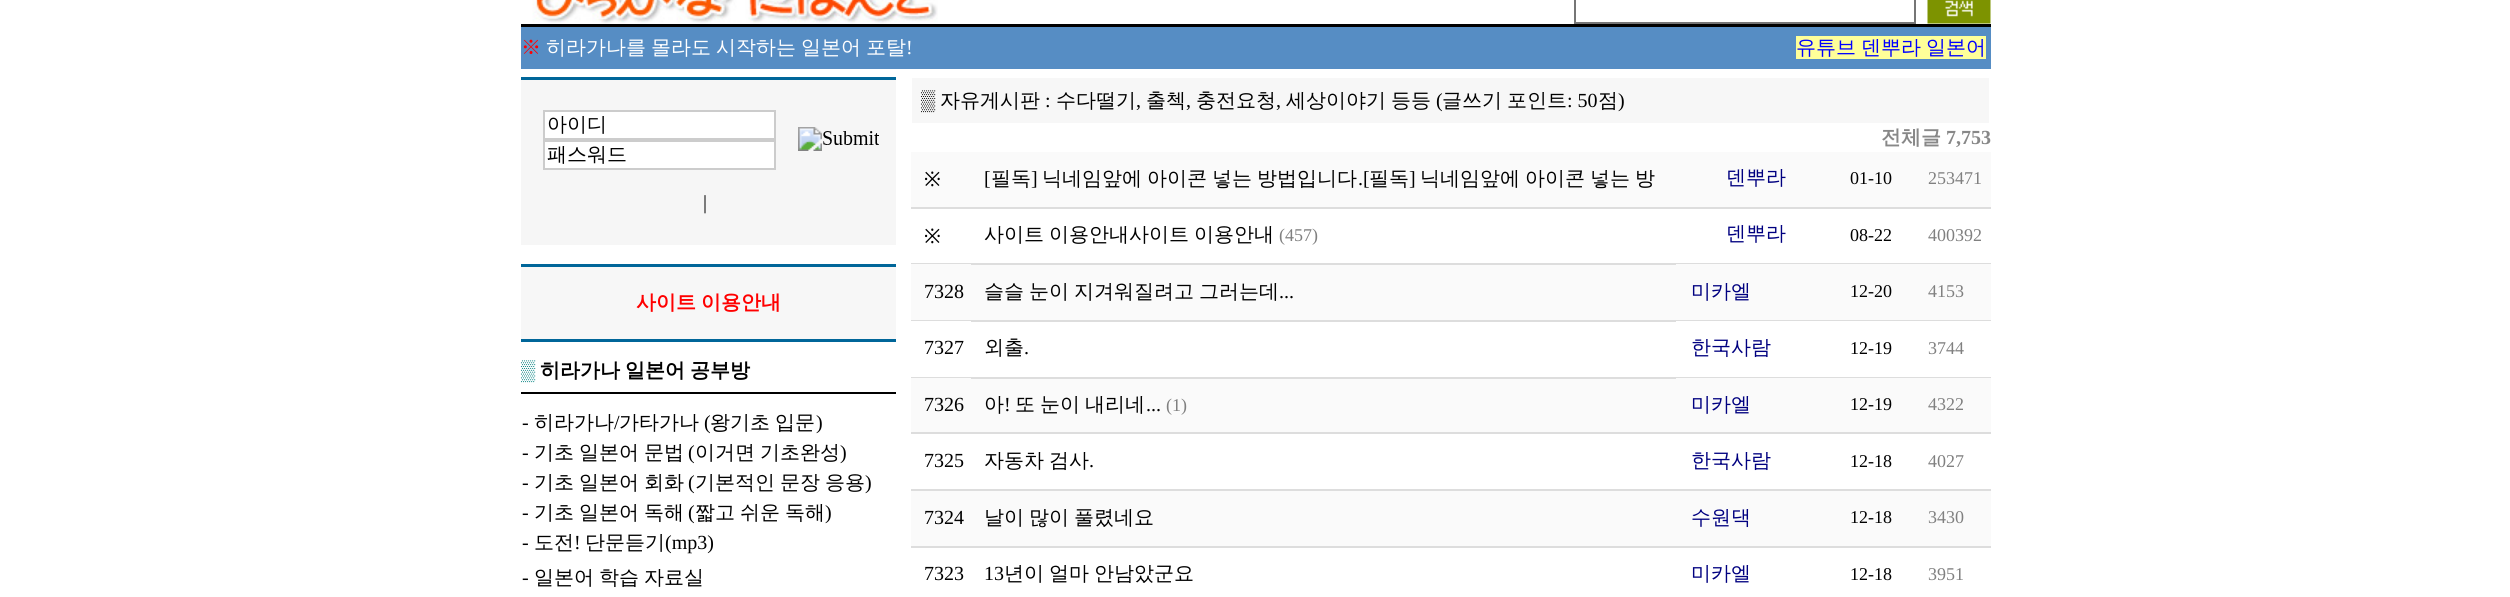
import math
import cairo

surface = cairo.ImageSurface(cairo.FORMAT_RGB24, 2510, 597)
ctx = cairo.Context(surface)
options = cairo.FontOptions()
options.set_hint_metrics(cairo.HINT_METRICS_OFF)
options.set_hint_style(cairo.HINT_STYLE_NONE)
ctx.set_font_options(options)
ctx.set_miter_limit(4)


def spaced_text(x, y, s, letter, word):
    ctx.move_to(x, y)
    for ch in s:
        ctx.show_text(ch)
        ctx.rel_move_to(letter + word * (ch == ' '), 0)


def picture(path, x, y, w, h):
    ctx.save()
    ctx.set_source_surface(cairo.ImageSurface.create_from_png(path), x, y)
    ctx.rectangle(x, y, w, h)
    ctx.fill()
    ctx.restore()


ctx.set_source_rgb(1, 1, 1)
ctx.paint()
picture("img1.png", 532, 0, 406, 24)
ctx.rectangle(1575, -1, 340, 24)
ctx.set_source_rgb(0.463, 0.463, 0.463)
ctx.stroke()
picture("img2.png", 1927, 0, 64, 24)
ctx.set_source_rgb(0, 0, 0)
ctx.rectangle(521, 24, 1470, 3)
ctx.fill()
ctx.set_source_rgb(0.337, 0.553, 0.769)
ctx.rectangle(521, 27, 1470, 42)
ctx.fill()
ctx.select_font_face("WenQuanYi Zen Hei Medium")
ctx.set_font_size(20)
ctx.set_source_rgb(1, 0, 0)
ctx.move_to(521, 54)
ctx.show_text("※")
ctx.set_source_rgb(1, 1, 1)
spaced_text(546, 54, "히라가나를 몰라도 시작하는 일본어 포탈", 0, -1)
ctx.select_font_face("Liberation Serif")
ctx.move_to(906, 54)
ctx.show_text("!")
ctx.set_source_rgb(1, 1, 0.6)
ctx.rectangle(1796, 36, 190, 23)
ctx.fill()
ctx.select_font_face("WenQuanYi Zen Hei Medium")
ctx.set_source_rgb(0, 0, 1)
spaced_text(1796, 54, "유튜브 덴뿌라 일본어", 0, -1)
ctx.set_source_rgb(0, 0.4, 0.6)
ctx.rectangle(521, 77, 375, 3)
ctx.fill()
ctx.set_source_rgb(0.961, 0.961, 0.961)
ctx.rectangle(521, 80, 375, 165)
ctx.fill()
ctx.set_source_rgb(1, 1, 1)
ctx.rectangle(544, 111, 231, 28)
ctx.fill_preserve()
ctx.set_source_rgb(0.8, 0.8, 0.8)
ctx.stroke()
ctx.set_source_rgb(0, 0, 0)
ctx.move_to(547, 131)
ctx.show_text("아이디")
ctx.set_source_rgb(1, 1, 1)
ctx.rectangle(544, 141, 231, 28)
ctx.fill_preserve()
ctx.set_source_rgb(0.8, 0.8, 0.8)
ctx.stroke()
ctx.set_source_rgb(0, 0, 0)
ctx.move_to(547, 161)
ctx.show_text("패스워드")
picture("img3.png", 798, 127, 81, 24)
ctx.select_font_face("Liberation Serif")
ctx.move_to(703, 209)
ctx.show_text("|")
ctx.set_source_rgb(0, 0.4, 0.6)
ctx.rectangle(521, 264, 375, 3)
ctx.fill()
ctx.set_source_rgb(0.965, 0.965, 0.965)
ctx.rectangle(521, 267, 375, 72)
ctx.fill()
ctx.select_font_face("WenQuanYi Zen Hei", cairo.FONT_SLANT_NORMAL, cairo.FONT_WEIGHT_BOLD)
ctx.set_source_rgb(1, 0, 0)
spaced_text(636, 309, "사이트 이용안내", 0, -1)
ctx.set_source_rgb(0, 0.4, 0.6)
ctx.rectangle(521, 339, 375, 3)
ctx.fill()
ctx.select_font_face("Liberation Serif", cairo.FONT_SLANT_NORMAL, cairo.FONT_WEIGHT_BOLD)
ctx.set_source_rgb(0, 0.502, 0.502)
ctx.move_to(521, 377)
ctx.show_text("▒")
ctx.select_font_face("WenQuanYi Zen Hei", cairo.FONT_SLANT_NORMAL, cairo.FONT_WEIGHT_BOLD)
ctx.set_source_rgb(0, 0, 0)
spaced_text(540, 377, "히라가나 일본어 공부방", 0, -1)
ctx.rectangle(521, 392, 375, 2)
ctx.fill()
ctx.select_font_face("Liberation Serif")
ctx.move_to(522, 429)
ctx.show_text("-")
ctx.select_font_face("WenQuanYi Zen Hei Medium")
ctx.move_to(534, 429)
ctx.show_text("히라가나")
ctx.select_font_face("Liberation Serif")
ctx.move_to(614, 429)
ctx.show_text("/")
ctx.select_font_face("WenQuanYi Zen Hei Medium")
ctx.move_to(619, 429)
ctx.show_text("가타가나")
ctx.select_font_face("Liberation Serif")
ctx.move_to(704, 429)
ctx.show_text("(")
ctx.select_font_face("WenQuanYi Zen Hei Medium")
spaced_text(710, 429, "왕기초 입문", 0, -1)
ctx.select_font_face("Liberation Serif")
ctx.move_to(816, 429)
ctx.show_text(")")
ctx.move_to(522, 459)
ctx.show_text("-")
ctx.select_font_face("WenQuanYi Zen Hei Medium")
spaced_text(534, 459, "기초 일본어 문법", 0, -1)
ctx.select_font_face("Liberation Serif")
ctx.move_to(688, 459)
ctx.show_text("(")
ctx.select_font_face("WenQuanYi Zen Hei Medium")
ctx.move_to(695, 459)
ctx.show_text("이거면")
ctx.move_to(760, 459)
ctx.show_text("기초완성")
ctx.select_font_face("Liberation Serif")
ctx.move_to(840, 459)
ctx.show_text(")")
ctx.move_to(522, 489)
ctx.show_text("-")
ctx.select_font_face("WenQuanYi Zen Hei Medium")
spaced_text(534, 489, "기초 일본어 회화", 0, -1)
ctx.select_font_face("Liberation Serif")
ctx.move_to(688, 489)
ctx.show_text("(")
ctx.select_font_face("WenQuanYi Zen Hei Medium")
spaced_text(695, 489, "기본적인 문장 응용", 0, -1)
ctx.select_font_face("Liberation Serif")
ctx.move_to(865, 489)
ctx.show_text(")")
ctx.move_to(522, 519)
ctx.show_text("-")
ctx.select_font_face("WenQuanYi Zen Hei Medium")
spaced_text(534, 519, "기초 일본어 독해", 0, -1)
ctx.select_font_face("Liberation Serif")
ctx.move_to(688, 519)
ctx.show_text("(")
ctx.select_font_face("WenQuanYi Zen Hei Medium")
spaced_text(695, 519, "짧고 쉬운 독해", 0, -1)
ctx.select_font_face("Liberation Serif")
ctx.move_to(825, 519)
ctx.show_text(")")
ctx.move_to(522, 549)
ctx.show_text("-")
ctx.select_font_face("WenQuanYi Zen Hei Medium")
ctx.move_to(534, 549)
ctx.show_text("도전")
ctx.select_font_face("Liberation Serif")
ctx.move_to(574, 549)
ctx.show_text("!")
ctx.select_font_face("WenQuanYi Zen Hei Medium")
ctx.move_to(585, 549)
ctx.show_text("단문듣기")
ctx.select_font_face("Liberation Serif")
ctx.move_to(665, 549)
ctx.show_text("(mp3)")
ctx.move_to(522, 584)
ctx.show_text("-")
ctx.select_font_face("WenQuanYi Zen Hei Medium")
spaced_text(534, 584, "일본어 학습 자료실", 0, -1)
ctx.set_source_rgb(0.965, 0.965, 0.965)
ctx.rectangle(912, 78, 1077, 45)
ctx.fill()
ctx.select_font_face("Liberation Serif")
ctx.set_source_rgb(0, 0, 0)
ctx.move_to(921, 107)
ctx.show_text("▒")
ctx.select_font_face("WenQuanYi Zen Hei Medium")
ctx.move_to(940, 107)
ctx.show_text("자유게시판")
ctx.select_font_face("Liberation Serif")
ctx.move_to(1045, 107)
ctx.show_text(":")
ctx.select_font_face("WenQuanYi Zen Hei Medium")
ctx.move_to(1056, 107)
ctx.show_text("수다떨기")
ctx.select_font_face("Liberation Serif")
ctx.move_to(1136, 107)
ctx.show_text(",")
ctx.select_font_face("WenQuanYi Zen Hei Medium")
ctx.move_to(1146, 107)
ctx.show_text("출첵")
ctx.select_font_face("Liberation Serif")
ctx.move_to(1186, 107)
ctx.show_text(",")
ctx.select_font_face("WenQuanYi Zen Hei Medium")
ctx.move_to(1196, 107)
ctx.show_text("충전요청")
ctx.select_font_face("Liberation Serif")
ctx.move_to(1276, 107)
ctx.show_text(",")
ctx.select_font_face("WenQuanYi Zen Hei Medium")
ctx.move_to(1286, 107)
ctx.show_text("세상이야기")
ctx.move_to(1391, 107)
ctx.show_text("등등")
ctx.select_font_face("Liberation Serif")
ctx.move_to(1436, 107)
ctx.show_text("(")
ctx.select_font_face("WenQuanYi Zen Hei Medium")
ctx.move_to(1442, 107)
ctx.show_text("글쓰기")
ctx.move_to(1507, 107)
ctx.show_text("포인트")
ctx.select_font_face("Liberation Serif")
ctx.move_to(1567, 107)
ctx.show_text(": 50")
ctx.select_font_face("WenQuanYi Zen Hei Medium")
ctx.move_to(1598, 107)
ctx.show_text("점")
ctx.select_font_face("Liberation Serif")
ctx.move_to(1618, 107)
ctx.show_text(")")
ctx.select_font_face("WenQuanYi Zen Hei", cairo.FONT_SLANT_NORMAL, cairo.FONT_WEIGHT_BOLD)
ctx.set_source_rgb(0.533, 0.533, 0.533)
ctx.move_to(1881, 144)
ctx.show_text("전체글")
ctx.select_font_face("Liberation Serif", cairo.FONT_SLANT_NORMAL, cairo.FONT_WEIGHT_BOLD)
ctx.move_to(1946, 144)
ctx.show_text("7,753")
ctx.set_source_rgb(0.98, 0.98, 0.98)
ctx.rectangle(911, 152, 1080, 55)
ctx.fill()
ctx.set_source_rgb(0.867, 0.867, 0.867)
ctx.rectangle(911, 207, 60, 2)
ctx.fill()
ctx.select_font_face("Noto Sans")
ctx.set_source_rgb(0, 0, 0)
ctx.move_to(924, 186)
ctx.show_text("※")
ctx.select_font_face("Liberation Serif")
ctx.move_to(984, 185)
ctx.show_text("[")
ctx.select_font_face("WenQuanYi Zen Hei Medium")
ctx.move_to(991, 185)
ctx.show_text("필독")
ctx.select_font_face("Liberation Serif")
ctx.move_to(1031, 185)
ctx.show_text("]")
ctx.select_font_face("WenQuanYi Zen Hei Medium")
spaced_text(1042, 185, "닉네임앞에 아이콘 넣는 방법입니다", 0, -1)
ctx.select_font_face("Liberation Serif")
ctx.move_to(1358, 185)
ctx.show_text(".[")
ctx.select_font_face("WenQuanYi Zen Hei Medium")
ctx.move_to(1369, 185)
ctx.show_text("필독")
ctx.select_font_face("Liberation Serif")
ctx.move_to(1409, 185)
ctx.show_text("]")
ctx.select_font_face("WenQuanYi Zen Hei Medium")
spaced_text(1420, 185, "닉네임앞에 아이콘 넣는 방", 0, -1)
ctx.set_source_rgb(0.867, 0.867, 0.867)
ctx.rectangle(971, 207, 1020, 2)
ctx.fill()
ctx.set_source_rgb(0, 0, 0.502)
ctx.move_to(1726, 184)
ctx.show_text("덴뿌라")
ctx.select_font_face("Liberation Serif")
ctx.set_font_size(18)
ctx.set_source_rgb(0, 0, 0)
ctx.move_to(1850, 184)
ctx.show_text("01-10")
ctx.set_source_rgb(0.502, 0.502, 0.502)
ctx.move_to(1928, 184)
ctx.show_text("253471")
ctx.set_source_rgb(0.867, 0.867, 0.867)
ctx.rectangle(911, 263, 60, 1)
ctx.fill()
ctx.select_font_face("Noto Sans")
ctx.set_font_size(20)
ctx.set_source_rgb(0, 0, 0)
ctx.move_to(924, 243)
ctx.show_text("※")
ctx.set_source_rgb(0.98, 0.98, 0.98)
ctx.rectangle(911, 264, 1080, 56)
ctx.fill()
ctx.set_source_rgb(0.867, 0.867, 0.867)
ctx.rectangle(971, 263, 705, 2)
ctx.fill()
ctx.select_font_face("WenQuanYi Zen Hei Medium")
ctx.set_source_rgb(0, 0, 0)
spaced_text(984, 241, "사이트 이용안내사이트 이용안내", 0, -1)
ctx.select_font_face("Liberation Serif")
ctx.set_font_size(18)
ctx.set_source_rgb(0.502, 0.502, 0.502)
ctx.move_to(1279, 241)
ctx.show_text("(457)")
ctx.set_source_rgb(0.867, 0.867, 0.867)
ctx.rectangle(1676, 263, 315, 1)
ctx.fill()
ctx.select_font_face("WenQuanYi Zen Hei Medium")
ctx.set_font_size(20)
ctx.set_source_rgb(0, 0, 0.502)
ctx.move_to(1726, 240)
ctx.show_text("덴뿌라")
ctx.select_font_face("Liberation Serif")
ctx.set_font_size(18)
ctx.set_source_rgb(0, 0, 0)
ctx.move_to(1850, 241)
ctx.show_text("08-22")
ctx.set_source_rgb(0.502, 0.502, 0.502)
ctx.move_to(1928, 241)
ctx.show_text("400392")
ctx.set_source_rgb(0.867, 0.867, 0.867)
ctx.rectangle(911, 320, 60, 1)
ctx.fill()
ctx.set_font_size(20)
ctx.set_source_rgb(0, 0, 0)
ctx.move_to(924, 298)
ctx.show_text("7328")
ctx.set_source_rgb(0.867, 0.867, 0.867)
ctx.rectangle(971, 320, 705, 2)
ctx.fill()
ctx.select_font_face("WenQuanYi Zen Hei Medium")
ctx.set_source_rgb(0, 0, 0)
spaced_text(984, 298, "슬슬 눈이 지겨워질려고 그러는데", 0, -1)
ctx.select_font_face("Liberation Serif")
ctx.move_to(1279, 298)
ctx.show_text("...")
ctx.set_source_rgb(0.867, 0.867, 0.867)
ctx.rectangle(1676, 320, 315, 1)
ctx.fill()
ctx.select_font_face("WenQuanYi Zen Hei Medium")
ctx.set_source_rgb(0, 0, 0.502)
ctx.move_to(1691, 298)
ctx.show_text("미카엘")
ctx.select_font_face("Liberation Serif")
ctx.set_font_size(18)
ctx.set_source_rgb(0, 0, 0)
ctx.move_to(1850, 297)
ctx.show_text("12-20")
ctx.set_source_rgb(0.502, 0.502, 0.502)
ctx.move_to(1928, 297)
ctx.show_text("4153")
ctx.set_source_rgb(0.867, 0.867, 0.867)
ctx.rectangle(911, 377, 60, 1)
ctx.fill()
ctx.set_font_size(20)
ctx.set_source_rgb(0, 0, 0)
ctx.move_to(924, 354)
ctx.show_text("7327")
ctx.set_source_rgb(0.98, 0.98, 0.98)
ctx.rectangle(911, 378, 1080, 54)
ctx.fill()
ctx.set_source_rgb(0.867, 0.867, 0.867)
ctx.rectangle(971, 377, 705, 2)
ctx.fill()
ctx.select_font_face("WenQuanYi Zen Hei Medium")
ctx.set_source_rgb(0, 0, 0)
ctx.move_to(984, 354)
ctx.show_text("외출")
ctx.select_font_face("Liberation Serif")
ctx.move_to(1024, 354)
ctx.show_text(".")
ctx.set_source_rgb(0.867, 0.867, 0.867)
ctx.rectangle(1676, 377, 315, 1)
ctx.fill()
ctx.select_font_face("WenQuanYi Zen Hei Medium")
ctx.set_source_rgb(0, 0, 0.502)
ctx.move_to(1691, 354)
ctx.show_text("한국사람")
ctx.select_font_face("Liberation Serif")
ctx.set_font_size(18)
ctx.set_source_rgb(0, 0, 0)
ctx.move_to(1850, 354)
ctx.show_text("12-19")
ctx.set_source_rgb(0.502, 0.502, 0.502)
ctx.move_to(1928, 354)
ctx.show_text("3744")
ctx.set_source_rgb(0.867, 0.867, 0.867)
ctx.rectangle(911, 432, 60, 2)
ctx.fill()
ctx.set_font_size(20)
ctx.set_source_rgb(0, 0, 0)
ctx.move_to(924, 411)
ctx.show_text("7326")
ctx.select_font_face("WenQuanYi Zen Hei Medium")
ctx.move_to(984, 411)
ctx.show_text("아")
ctx.select_font_face("Liberation Serif")
ctx.move_to(1004, 411)
ctx.show_text("!")
ctx.select_font_face("WenQuanYi Zen Hei Medium")
spaced_text(1015, 411, "또 눈이 내리네", 0, -1)
ctx.select_font_face("Liberation Serif")
ctx.move_to(1146, 411)
ctx.show_text("...")
ctx.set_font_size(18)
ctx.set_source_rgb(0.502, 0.502, 0.502)
ctx.move_to(1166, 411)
ctx.show_text("(1)")
ctx.set_source_rgb(0.867, 0.867, 0.867)
ctx.rectangle(971, 432, 1020, 2)
ctx.fill()
ctx.select_font_face("WenQuanYi Zen Hei Medium")
ctx.set_font_size(20)
ctx.set_source_rgb(0, 0, 0.502)
ctx.move_to(1691, 411)
ctx.show_text("미카엘")
ctx.select_font_face("Liberation Serif")
ctx.set_font_size(18)
ctx.set_source_rgb(0, 0, 0)
ctx.move_to(1850, 410)
ctx.show_text("12-19")
ctx.set_source_rgb(0.502, 0.502, 0.502)
ctx.move_to(1928, 410)
ctx.show_text("4322")
ctx.set_source_rgb(0.867, 0.867, 0.867)
ctx.rectangle(911, 489, 60, 2)
ctx.fill()
ctx.set_font_size(20)
ctx.set_source_rgb(0, 0, 0)
ctx.move_to(924, 467)
ctx.show_text("7325")
ctx.select_font_face("WenQuanYi Zen Hei Medium")
spaced_text(984, 467, "자동차 검사", 0, -1)
ctx.select_font_face("Liberation Serif")
ctx.move_to(1089, 467)
ctx.show_text(".")
ctx.set_source_rgb(0.867, 0.867, 0.867)
ctx.rectangle(971, 489, 1020, 2)
ctx.fill()
ctx.select_font_face("WenQuanYi Zen Hei Medium")
ctx.set_source_rgb(0, 0, 0.502)
ctx.move_to(1691, 467)
ctx.show_text("한국사람")
ctx.select_font_face("Liberation Serif")
ctx.set_font_size(18)
ctx.set_source_rgb(0, 0, 0)
ctx.move_to(1850, 467)
ctx.show_text("12-18")
ctx.set_source_rgb(0.502, 0.502, 0.502)
ctx.move_to(1928, 467)
ctx.show_text("4027")
ctx.set_source_rgb(0.98, 0.98, 0.98)
ctx.rectangle(911, 491, 1080, 55)
ctx.fill()
ctx.set_source_rgb(0.867, 0.867, 0.867)
ctx.rectangle(911, 546, 60, 2)
ctx.fill()
ctx.set_font_size(20)
ctx.set_source_rgb(0, 0, 0)
ctx.move_to(924, 524)
ctx.show_text("7324")
ctx.select_font_face("WenQuanYi Zen Hei Medium")
spaced_text(984, 524, "날이 많이 풀렸네요", 0, -1)
ctx.set_source_rgb(0.867, 0.867, 0.867)
ctx.rectangle(971, 546, 1020, 2)
ctx.fill()
ctx.set_source_rgb(0, 0, 0.502)
ctx.move_to(1691, 524)
ctx.show_text("수원댁")
ctx.select_font_face("Liberation Serif")
ctx.set_font_size(18)
ctx.set_source_rgb(0, 0, 0)
ctx.move_to(1850, 523)
ctx.show_text("12-18")
ctx.set_source_rgb(0.502, 0.502, 0.502)
ctx.move_to(1928, 523)
ctx.show_text("3430")
ctx.set_font_size(20)
ctx.set_source_rgb(0, 0, 0)
ctx.move_to(924, 580)
ctx.show_text("7323")
ctx.move_to(984, 580)
ctx.show_text("13")
ctx.select_font_face("WenQuanYi Zen Hei Medium")
spaced_text(1004, 580, "년이 얼마 안남았군요", 0, -1)
ctx.set_source_rgb(0, 0, 0.502)
ctx.move_to(1691, 580)
ctx.show_text("미카엘")
ctx.select_font_face("Liberation Serif")
ctx.set_font_size(18)
ctx.set_source_rgb(0, 0, 0)
ctx.move_to(1850, 580)
ctx.show_text("12-18")
ctx.set_source_rgb(0.502, 0.502, 0.502)
ctx.move_to(1928, 580)
ctx.show_text("3951")
surface.write_to_png("page.png")
